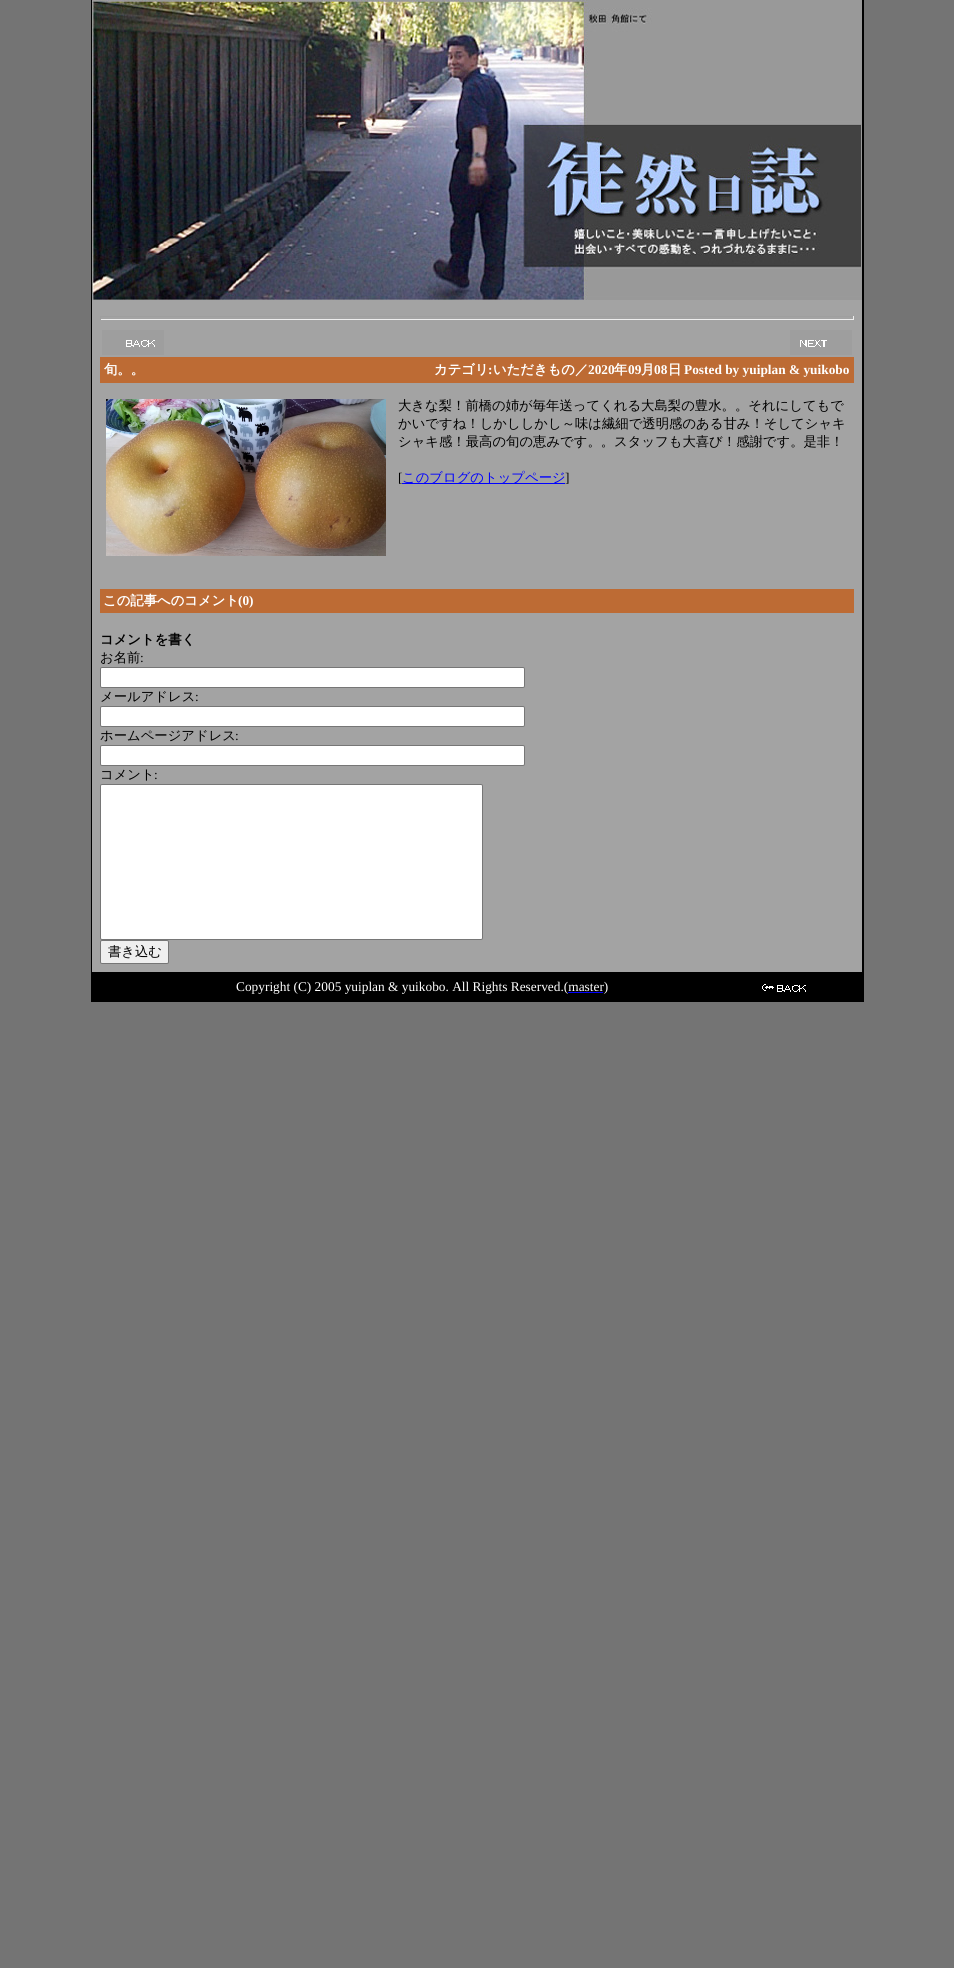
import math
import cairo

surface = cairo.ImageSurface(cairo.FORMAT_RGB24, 954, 1968)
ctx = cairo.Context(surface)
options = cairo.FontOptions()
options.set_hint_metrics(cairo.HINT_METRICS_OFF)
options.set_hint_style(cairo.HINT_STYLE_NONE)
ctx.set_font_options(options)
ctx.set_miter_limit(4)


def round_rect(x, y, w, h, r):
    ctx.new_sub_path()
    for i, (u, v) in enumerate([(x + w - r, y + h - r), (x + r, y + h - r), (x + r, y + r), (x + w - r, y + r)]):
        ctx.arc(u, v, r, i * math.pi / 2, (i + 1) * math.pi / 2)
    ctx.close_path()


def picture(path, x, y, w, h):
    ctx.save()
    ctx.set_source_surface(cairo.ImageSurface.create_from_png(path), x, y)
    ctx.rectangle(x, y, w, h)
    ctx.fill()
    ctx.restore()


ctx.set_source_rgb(0.455, 0.455, 0.455)
ctx.paint()
ctx.set_source_rgb(0, 0, 0)
ctx.rectangle(862, 0, 2, 972)
ctx.fill()
ctx.rectangle(91, 0, 1, 972)
ctx.fill()
picture("img1.png", 92, 0, 770, 300)
ctx.set_source_rgb(0.639, 0.639, 0.639)
ctx.rectangle(92, 300, 770, 672)
ctx.fill()
ctx.set_source_rgb(0.624, 0.624, 0.624)
ctx.rectangle(100, 316, 754, 1)
ctx.fill()
ctx.set_source_rgb(0.933, 0.933, 0.933)
ctx.rectangle(853, 316, 1, 4)
ctx.fill()
ctx.rectangle(100, 319, 754, 1)
ctx.fill()
ctx.set_source_rgb(0.624, 0.624, 0.624)
ctx.rectangle(100, 316, 1, 4)
ctx.fill()
picture("img2.png", 102, 330, 62, 25)
picture("img3.png", 790, 330, 62, 25)
ctx.set_source_rgb(0.741, 0.42, 0.204)
ctx.rectangle(100, 357, 754, 26)
ctx.fill()
ctx.select_font_face("WenQuanYi Zen Hei", cairo.FONT_SLANT_NORMAL, cairo.FONT_WEIGHT_BOLD)
ctx.set_font_size(13.35)
ctx.set_source_rgb(1, 1, 1)
ctx.move_to(104, 374)
ctx.show_text("旬。。")
ctx.move_to(434, 374)
ctx.show_text("カテゴリ")
ctx.select_font_face("Liberation Serif", cairo.FONT_SLANT_NORMAL, cairo.FONT_WEIGHT_BOLD)
ctx.move_to(488, 374)
ctx.show_text(":")
ctx.select_font_face("WenQuanYi Zen Hei", cairo.FONT_SLANT_NORMAL, cairo.FONT_WEIGHT_BOLD)
ctx.move_to(493, 374)
ctx.show_text("いただきもの／")
ctx.select_font_face("Liberation Serif", cairo.FONT_SLANT_NORMAL, cairo.FONT_WEIGHT_BOLD)
ctx.move_to(588, 374)
ctx.show_text("2020")
ctx.select_font_face("WenQuanYi Zen Hei", cairo.FONT_SLANT_NORMAL, cairo.FONT_WEIGHT_BOLD)
ctx.move_to(614, 374)
ctx.show_text("年")
ctx.select_font_face("Liberation Serif", cairo.FONT_SLANT_NORMAL, cairo.FONT_WEIGHT_BOLD)
ctx.move_to(628, 374)
ctx.show_text("09")
ctx.select_font_face("WenQuanYi Zen Hei", cairo.FONT_SLANT_NORMAL, cairo.FONT_WEIGHT_BOLD)
ctx.move_to(641, 374)
ctx.show_text("月")
ctx.select_font_face("Liberation Serif", cairo.FONT_SLANT_NORMAL, cairo.FONT_WEIGHT_BOLD)
ctx.move_to(654, 374)
ctx.show_text("08")
ctx.select_font_face("WenQuanYi Zen Hei", cairo.FONT_SLANT_NORMAL, cairo.FONT_WEIGHT_BOLD)
ctx.move_to(668, 374)
ctx.show_text("日")
ctx.select_font_face("Liberation Serif", cairo.FONT_SLANT_NORMAL, cairo.FONT_WEIGHT_BOLD)
ctx.move_to(684, 374)
ctx.show_text("Posted by yuiplan & yuikobo")
picture("img4.png", 106, 399, 280, 157)
ctx.select_font_face("WenQuanYi Zen Hei Medium")
ctx.set_source_rgb(0, 0, 0)
ctx.move_to(398, 410)
ctx.show_text("大きな梨！前橋の姉が毎年送ってくれる大島梨の豊水。。それにしてもで")
ctx.move_to(398, 428)
ctx.show_text("かいですね！しかししかし～味は繊細で透明感のある甘み！そしてシャキ")
ctx.move_to(398, 446)
ctx.show_text("シャキ感！最高の旬の恵みです。。スタッフも大喜び！感謝です。是非！")
ctx.select_font_face("Liberation Serif")
ctx.move_to(398, 482)
ctx.show_text("[")
ctx.set_source_rgb(0, 0, 1)
ctx.rectangle(402, 483, 163, 1)
ctx.fill()
ctx.select_font_face("WenQuanYi Zen Hei Medium")
ctx.move_to(402, 482)
ctx.show_text("このブログのトップページ")
ctx.select_font_face("Liberation Serif")
ctx.set_source_rgb(0, 0, 0)
ctx.move_to(565, 482)
ctx.show_text("]")
ctx.set_source_rgb(0.741, 0.42, 0.204)
ctx.rectangle(100, 589, 754, 24)
ctx.fill()
ctx.select_font_face("WenQuanYi Zen Hei", cairo.FONT_SLANT_NORMAL, cairo.FONT_WEIGHT_BOLD)
ctx.set_source_rgb(1, 1, 1)
ctx.move_to(103, 605)
ctx.show_text("この記事へのコメント")
ctx.select_font_face("Liberation Serif", cairo.FONT_SLANT_NORMAL, cairo.FONT_WEIGHT_BOLD)
ctx.move_to(238, 605)
ctx.show_text("(0)")
ctx.select_font_face("WenQuanYi Zen Hei", cairo.FONT_SLANT_NORMAL, cairo.FONT_WEIGHT_BOLD)
ctx.set_source_rgb(0, 0, 0)
ctx.move_to(100, 644)
ctx.show_text("コメントを書く")
ctx.select_font_face("WenQuanYi Zen Hei Medium")
ctx.move_to(100, 662)
ctx.show_text("お名前")
ctx.select_font_face("Liberation Serif")
ctx.move_to(140, 662)
ctx.show_text(":")
ctx.set_source_rgb(1, 1, 1)
round_rect(100.5, 667.5, 424, 20, 1.5)
ctx.fill_preserve()
ctx.set_source_rgb(0.463, 0.463, 0.463)
ctx.set_line_width(1)
ctx.stroke()
ctx.select_font_face("WenQuanYi Zen Hei Medium")
ctx.set_source_rgb(0, 0, 0)
ctx.move_to(100, 701)
ctx.show_text("メールアドレス")
ctx.select_font_face("Liberation Serif")
ctx.move_to(195, 701)
ctx.show_text(":")
ctx.set_source_rgb(1, 1, 1)
round_rect(100.5, 706.5, 424, 20, 1.5)
ctx.fill_preserve()
ctx.set_source_rgb(0.463, 0.463, 0.463)
ctx.stroke()
ctx.select_font_face("WenQuanYi Zen Hei Medium")
ctx.set_source_rgb(0, 0, 0)
ctx.move_to(100, 740)
ctx.show_text("ホームページアドレス")
ctx.select_font_face("Liberation Serif")
ctx.move_to(235, 740)
ctx.show_text(":")
ctx.set_source_rgb(1, 1, 1)
round_rect(100.5, 745.5, 424, 20, 1.5)
ctx.fill_preserve()
ctx.set_source_rgb(0.463, 0.463, 0.463)
ctx.stroke()
ctx.select_font_face("WenQuanYi Zen Hei Medium")
ctx.set_source_rgb(0, 0, 0)
ctx.move_to(100, 779)
ctx.show_text("コメント")
ctx.select_font_face("Liberation Serif")
ctx.move_to(154, 779)
ctx.show_text(":")
ctx.set_source_rgb(1, 1, 1)
round_rect(100.5, 784.5, 382, 155, 1.5)
ctx.fill_preserve()
ctx.set_source_rgb(0.463, 0.463, 0.463)
ctx.stroke()
ctx.set_source_rgb(0.937, 0.937, 0.937)
round_rect(100.5, 940.5, 68, 23, 1.5)
ctx.fill_preserve()
ctx.set_source_rgb(0.463, 0.463, 0.463)
ctx.stroke()
ctx.select_font_face("WenQuanYi Zen Hei Medium")
ctx.set_source_rgb(0, 0, 0)
ctx.move_to(108, 956)
ctx.show_text("書き込む")
ctx.rectangle(91, 972, 773, 30)
ctx.fill()
ctx.select_font_face("Liberation Serif")
ctx.set_source_rgb(1, 1, 1)
ctx.move_to(236, 991)
ctx.show_text("Copyright (C) 2005 yuiplan & yuikobo. All Rights Reserved.(master)")
ctx.set_source_rgb(0, 0, 1)
ctx.rectangle(568, 992, 35, 1)
ctx.fill()
picture("img5.png", 762, 984, 44, 8)
surface.write_to_png("page.png")
